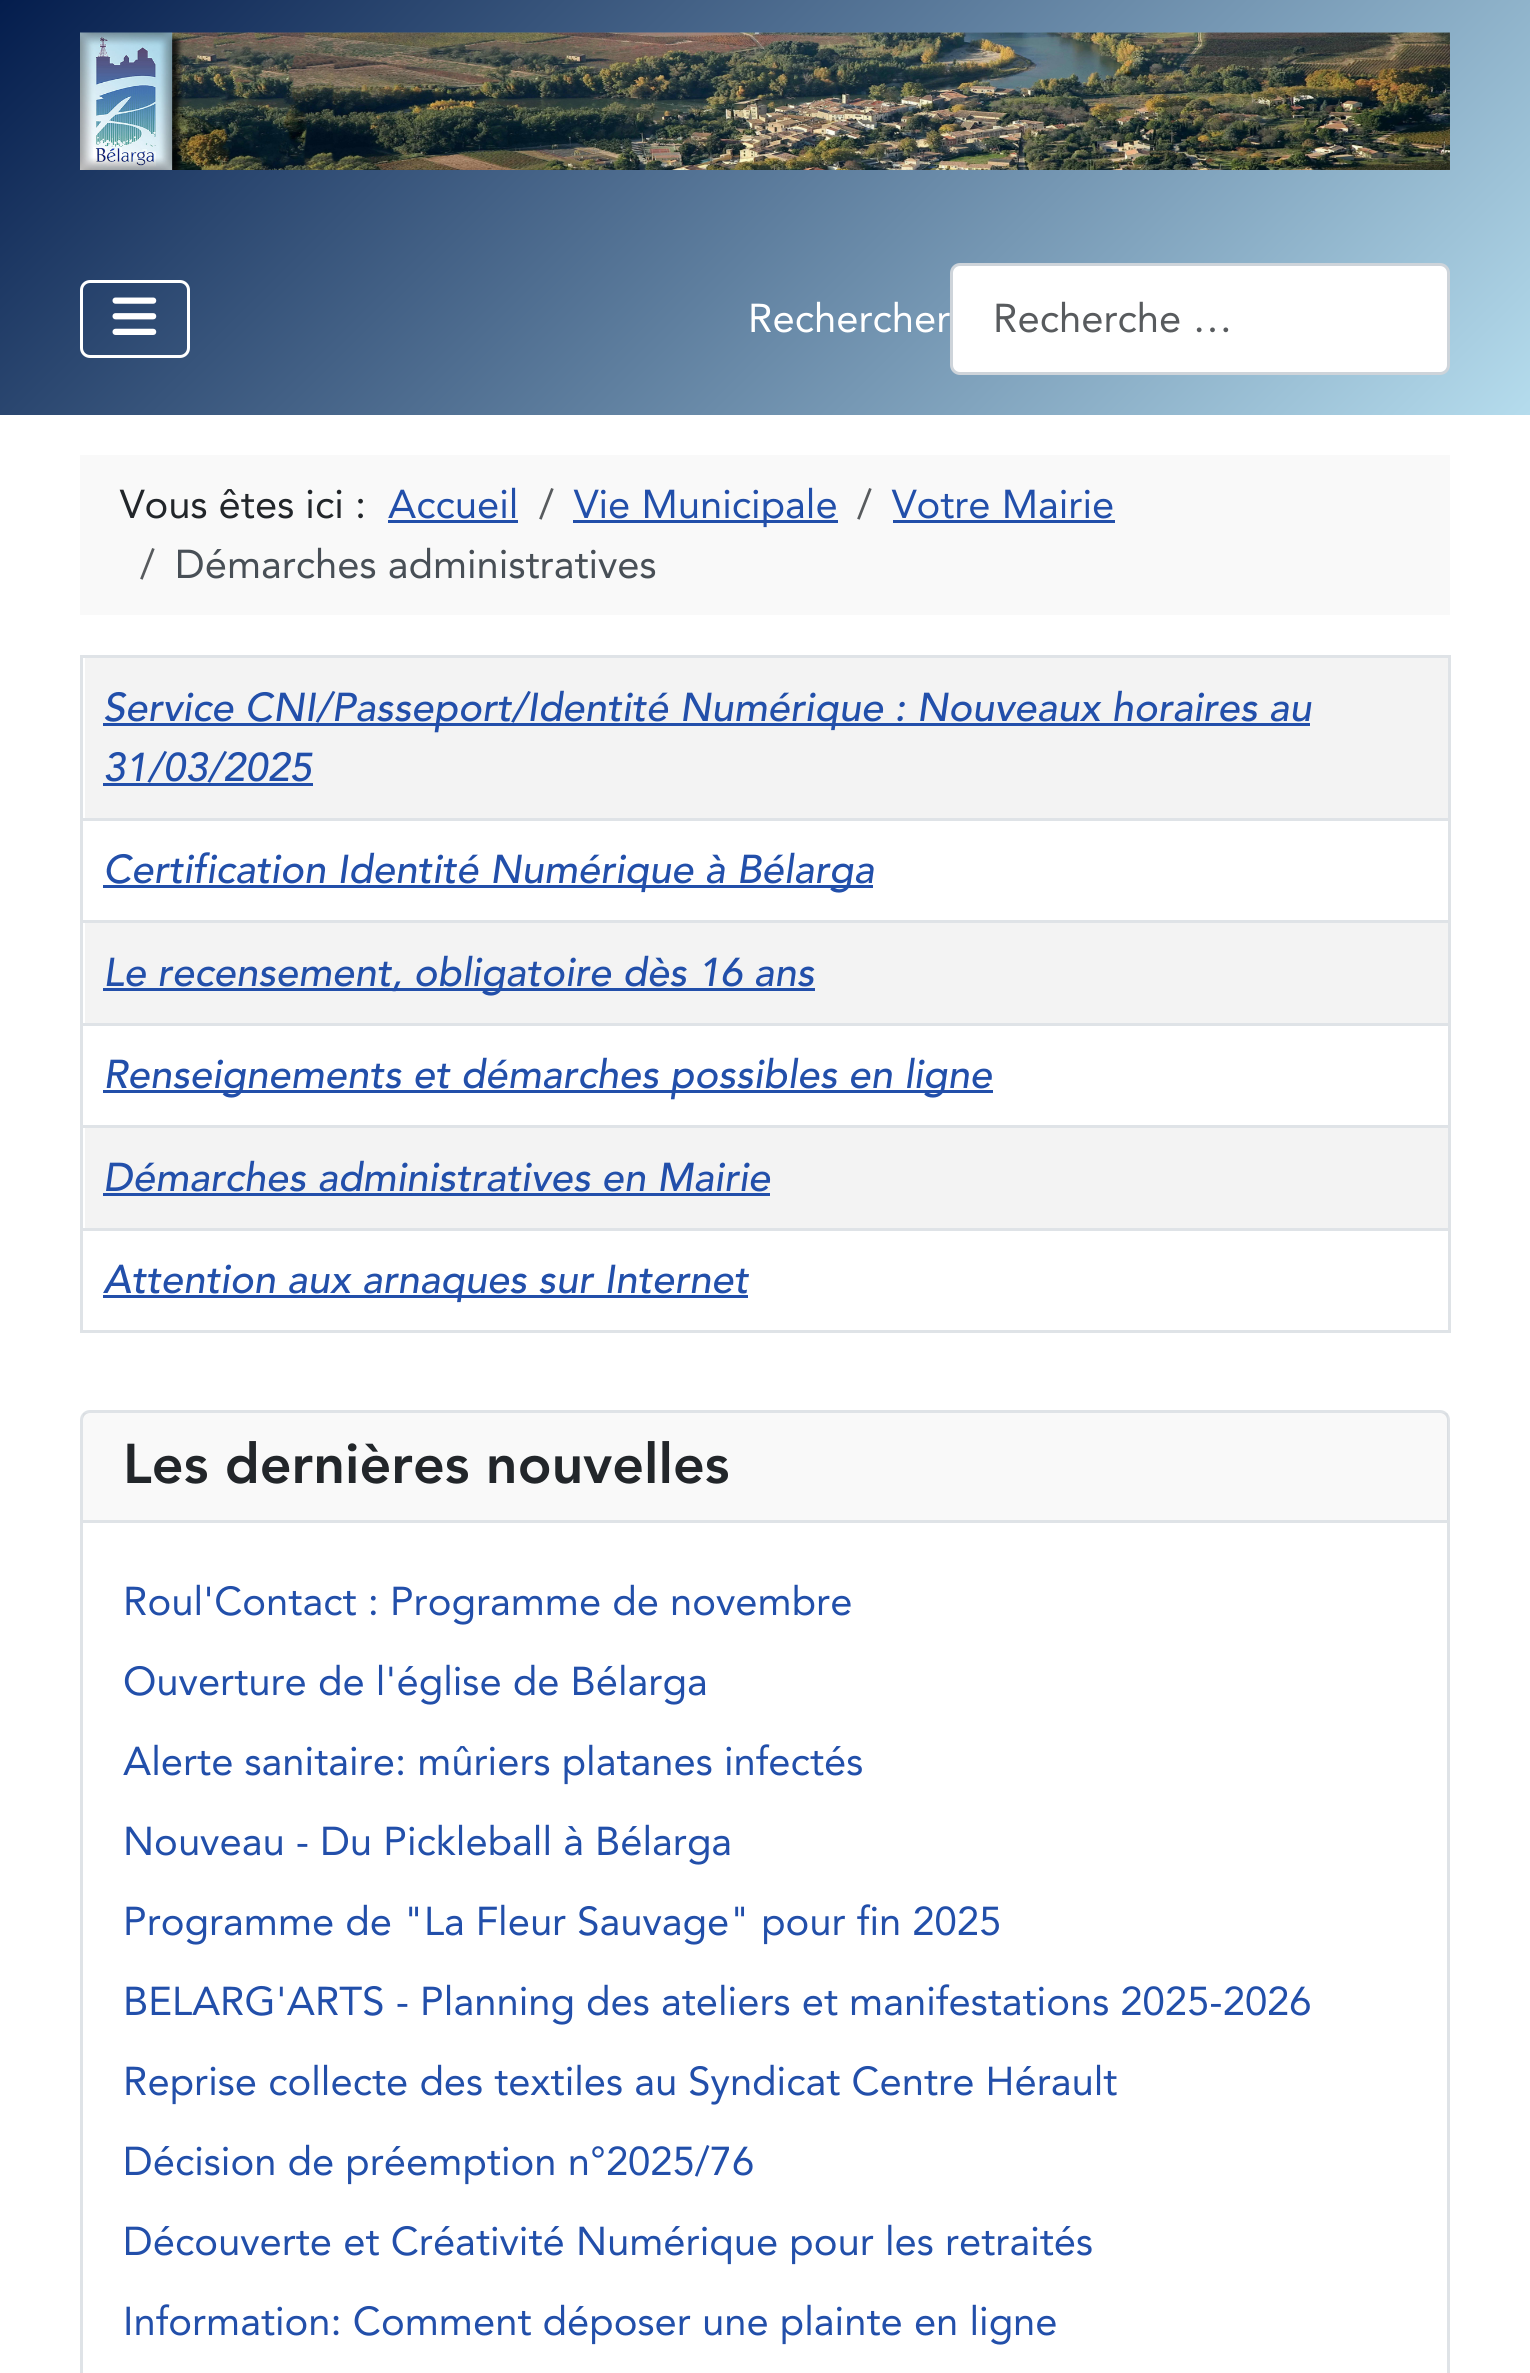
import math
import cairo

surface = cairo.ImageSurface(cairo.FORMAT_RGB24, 1530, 2373)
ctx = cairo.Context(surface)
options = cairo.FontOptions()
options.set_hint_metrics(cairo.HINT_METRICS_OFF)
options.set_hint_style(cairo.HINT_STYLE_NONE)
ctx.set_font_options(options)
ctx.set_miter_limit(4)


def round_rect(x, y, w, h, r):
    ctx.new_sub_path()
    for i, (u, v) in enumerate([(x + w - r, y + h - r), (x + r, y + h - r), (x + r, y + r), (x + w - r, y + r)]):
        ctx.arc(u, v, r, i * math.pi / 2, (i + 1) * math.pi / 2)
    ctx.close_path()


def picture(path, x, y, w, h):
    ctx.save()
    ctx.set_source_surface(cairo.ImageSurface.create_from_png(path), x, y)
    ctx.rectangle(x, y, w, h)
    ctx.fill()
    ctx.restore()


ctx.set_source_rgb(1, 1, 1)
ctx.paint()
gradient = cairo.LinearGradient(279, -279, 1251, 694)
gradient.add_color_stop_rgba(0, 0.016, 0.114, 0.302, 1)
gradient.add_color_stop_rgba(1, 0.71, 0.863, 0.929, 1)
ctx.set_source(gradient)
ctx.rectangle(0, 0, 1530, 415)
ctx.fill()
picture("img1.png", 80, 32, 1370, 138)
round_rect(81.5, 281.5, 107, 75, 8.5)
ctx.set_source_rgb(1, 1, 1)
ctx.set_line_width(3)
ctx.stroke()
picture("img2.png", 112, 297, 45, 38)
ctx.select_font_face("Avenir")
ctx.set_font_size(40)
ctx.move_to(748, 332)
ctx.show_text("Rechercher")
round_rect(951.5, 264.5, 497, 109, 8.5)
ctx.fill_preserve()
ctx.set_source_rgb(0.808, 0.831, 0.855)
ctx.stroke()
ctx.set_source_rgb(0.345, 0.357, 0.369)
ctx.move_to(993, 332)
ctx.show_text("Recherche …")
ctx.set_source_rgb(0.973, 0.973, 0.973)
ctx.rectangle(80, 455, 1370, 160)
ctx.fill()
ctx.set_source_rgb(0.133, 0.149, 0.165)
ctx.move_to(120, 518)
ctx.show_text("Vous êtes ici :")
ctx.set_source_rgb(0.133, 0.31, 0.667)
ctx.move_to(388, 518)
ctx.show_text("Accueil")
ctx.rectangle(388, 520, 130, 3)
ctx.fill()
ctx.set_source_rgb(0.345, 0.357, 0.369)
ctx.move_to(539, 518)
ctx.show_text("/")
ctx.set_source_rgb(0.133, 0.31, 0.667)
ctx.rectangle(573, 520, 265, 3)
ctx.fill()
ctx.move_to(574, 518)
ctx.show_text("Vie Municipale")
ctx.set_source_rgb(0.345, 0.357, 0.369)
ctx.move_to(857, 518)
ctx.show_text("/")
ctx.set_source_rgb(0.133, 0.31, 0.667)
ctx.move_to(892, 518)
ctx.show_text("Votre Mairie")
ctx.rectangle(893, 520, 222, 3)
ctx.fill()
ctx.set_source_rgb(0.345, 0.357, 0.369)
ctx.move_to(140, 578)
ctx.show_text("/")
ctx.set_source_rgb(0.282, 0.31, 0.337)
ctx.move_to(175, 578)
ctx.show_text("Démarches administratives")
ctx.set_source_rgb(0.875, 0.89, 0.906)
ctx.rectangle(80, 655, 1370, 3)
ctx.fill()
ctx.set_source_rgb(0.953, 0.953, 0.953)
ctx.rectangle(85, 658, 1363, 160)
ctx.fill()
ctx.set_source_rgb(0.133, 0.31, 0.667)
ctx.rectangle(103, 723, 1207, 3)
ctx.fill()
ctx.select_font_face("Avenir Medium", cairo.FONT_SLANT_ITALIC)
ctx.move_to(103, 721)
ctx.show_text("Service CNI/Passeport/Identité Numérique : Nouveaux horaires au")
ctx.move_to(103, 781)
ctx.show_text("31/03/2025")
ctx.rectangle(103, 783, 210, 3)
ctx.fill()
ctx.set_source_rgb(0.875, 0.89, 0.906)
ctx.rectangle(80, 818, 1370, 3)
ctx.fill()
ctx.set_source_rgb(0.133, 0.31, 0.667)
ctx.rectangle(103, 885, 770, 3)
ctx.fill()
ctx.move_to(103, 883)
ctx.show_text("Certification Identité Numérique à Bélarga")
ctx.set_source_rgb(0.875, 0.89, 0.906)
ctx.rectangle(80, 920, 1370, 3)
ctx.fill()
ctx.set_source_rgb(0.953, 0.953, 0.953)
ctx.rectangle(85, 923, 1363, 100)
ctx.fill()
ctx.set_source_rgb(0.133, 0.31, 0.667)
ctx.rectangle(103, 988, 712, 3)
ctx.fill()
ctx.move_to(103, 986)
ctx.show_text("Le recensement, obligatoire dès 16 ans")
ctx.set_source_rgb(0.875, 0.89, 0.906)
ctx.rectangle(80, 1023, 1370, 3)
ctx.fill()
ctx.set_source_rgb(0.133, 0.31, 0.667)
ctx.rectangle(103, 1090, 890, 3)
ctx.fill()
ctx.move_to(103, 1088)
ctx.show_text("Renseignements et démarches possibles en ligne")
ctx.set_source_rgb(0.875, 0.89, 0.906)
ctx.rectangle(80, 1125, 1370, 3)
ctx.fill()
ctx.set_source_rgb(0.953, 0.953, 0.953)
ctx.rectangle(85, 1128, 1363, 100)
ctx.fill()
ctx.set_source_rgb(0.133, 0.31, 0.667)
ctx.move_to(103, 1191)
ctx.show_text("Démarches administratives en Mairie")
ctx.rectangle(103, 1193, 667, 3)
ctx.fill()
ctx.set_source_rgb(0.875, 0.89, 0.906)
ctx.rectangle(80, 1228, 1370, 3)
ctx.fill()
ctx.rectangle(80, 1330, 1370, 3)
ctx.fill()
ctx.rectangle(1448, 655, 3, 678)
ctx.fill()
ctx.rectangle(80, 655, 3, 678)
ctx.fill()
ctx.set_source_rgb(0.133, 0.31, 0.667)
ctx.rectangle(103, 1295, 645, 3)
ctx.fill()
ctx.move_to(103, 1293)
ctx.show_text("Attention aux arnaques sur Internet")
round_rect(81.5, 1411.5, 1367, 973, 8.5)
ctx.set_source_rgb(0.875, 0.89, 0.906)
ctx.stroke()
ctx.set_source_rgba(0.133, 0.149, 0.165, 0.03)
ctx.rectangle(83, 1413, 1365, 107)
ctx.fill()
ctx.set_source_rgb(0.875, 0.89, 0.906)
ctx.rectangle(83, 1520, 1365, 3)
ctx.fill()
ctx.select_font_face("Avenir Black")
ctx.set_font_size(55.5)
ctx.set_source_rgb(0.133, 0.149, 0.165)
ctx.move_to(123, 1483)
ctx.show_text("Les dernières nouvelles")
ctx.select_font_face("Avenir")
ctx.set_font_size(40)
ctx.set_source_rgb(0.133, 0.31, 0.667)
ctx.move_to(123, 1615)
ctx.show_text("Roul'Contact : Programme de novembre")
ctx.move_to(123, 1695)
ctx.show_text("Ouverture de l'église de Bélarga")
ctx.move_to(123, 1775)
ctx.show_text("Alerte sanitaire: mûriers platanes infectés")
ctx.move_to(123, 1855)
ctx.show_text("Nouveau - Du Pickleball à Bélarga")
ctx.move_to(123, 1935)
ctx.show_text("Programme de \"La Fleur Sauvage\" pour fin 2025")
ctx.move_to(123, 2015)
ctx.show_text("BELARG'ARTS - Planning des ateliers et manifestations 2025-2026")
ctx.move_to(123, 2095)
ctx.show_text("Reprise collecte des textiles au Syndicat Centre Hérault")
ctx.move_to(123, 2175)
ctx.show_text("Décision de préemption n°2025/76")
ctx.move_to(123, 2255)
ctx.show_text("Découverte et Créativité Numérique pour les retraités")
ctx.move_to(123, 2335)
ctx.show_text("Information: Comment déposer une plainte en ligne")
surface.write_to_png("page.png")
